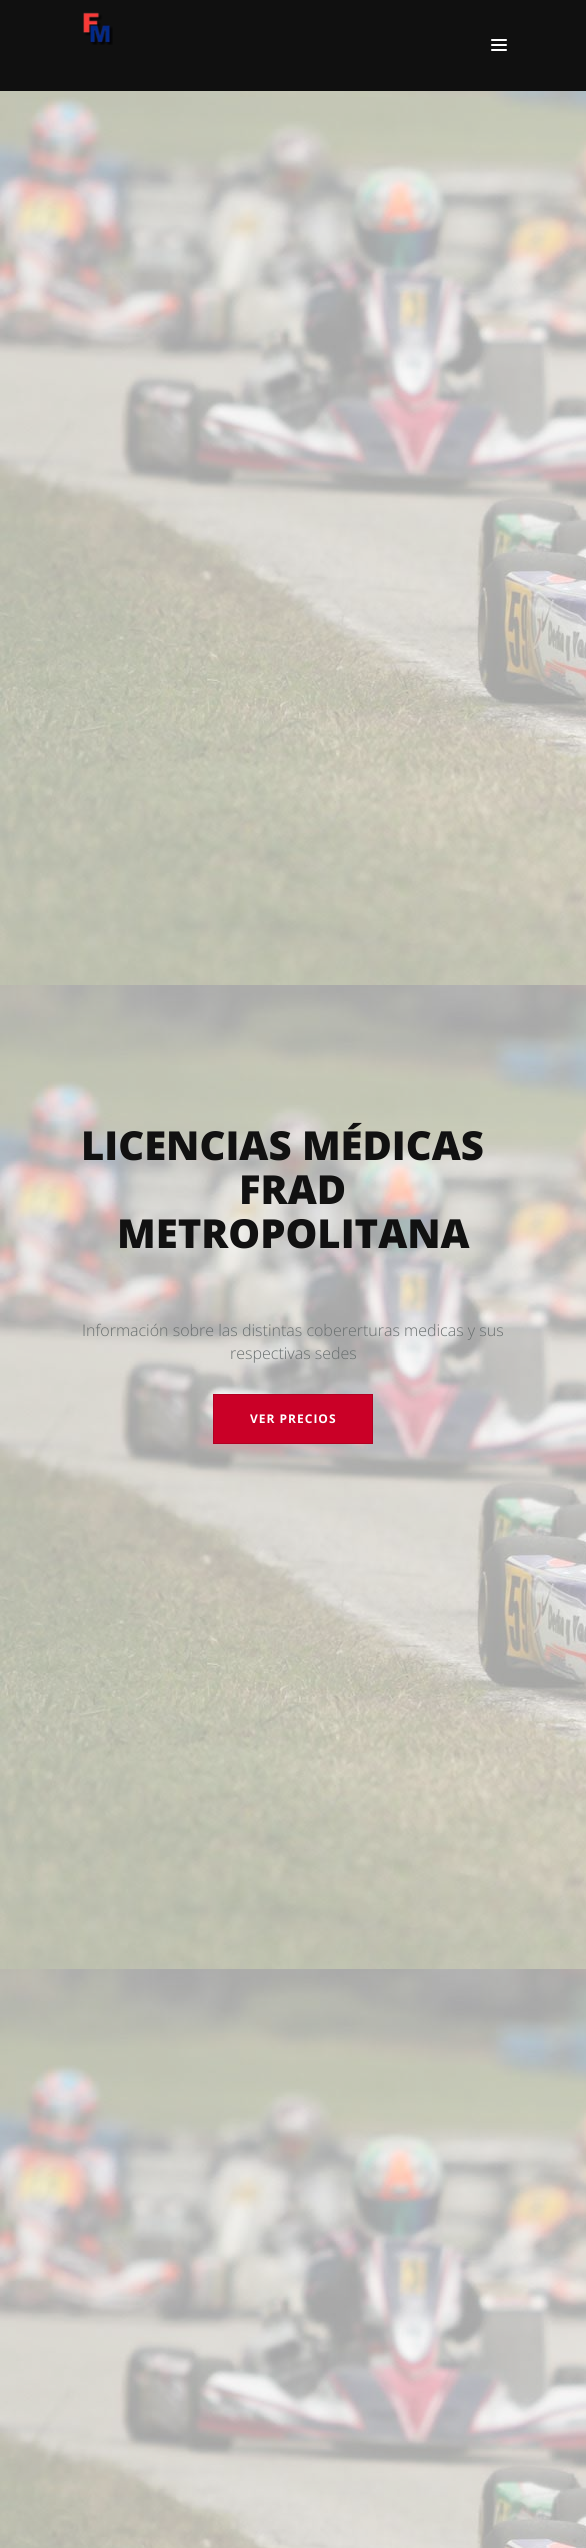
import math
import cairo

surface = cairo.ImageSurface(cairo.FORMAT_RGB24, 586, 2548)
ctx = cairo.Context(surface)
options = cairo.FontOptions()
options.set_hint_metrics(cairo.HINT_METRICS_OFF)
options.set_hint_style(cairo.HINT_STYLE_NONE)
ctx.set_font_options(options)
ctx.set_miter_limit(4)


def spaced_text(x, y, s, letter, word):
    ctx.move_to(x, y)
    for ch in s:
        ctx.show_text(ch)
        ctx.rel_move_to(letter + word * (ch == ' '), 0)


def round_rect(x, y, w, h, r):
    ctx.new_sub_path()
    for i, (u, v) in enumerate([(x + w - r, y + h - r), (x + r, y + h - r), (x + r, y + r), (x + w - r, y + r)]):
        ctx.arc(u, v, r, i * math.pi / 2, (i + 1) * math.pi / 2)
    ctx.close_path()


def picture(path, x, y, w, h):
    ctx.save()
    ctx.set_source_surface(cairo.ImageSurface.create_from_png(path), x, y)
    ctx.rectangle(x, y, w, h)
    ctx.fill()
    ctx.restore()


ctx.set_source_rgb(1, 1, 1)
ctx.paint()
ctx.set_source_rgb(0.063, 0.063, 0.063)
ctx.rectangle(0, 0, 586, 90)
ctx.fill()
ctx.set_source_rgb(0.055, 0.055, 0.055)
ctx.rectangle(0, 90, 586, 1)
ctx.fill()
picture("img1.png", 83, 12, 30, 33)
ctx.set_source_rgb(1, 1, 1)
round_rect(491, 44, 16, 2, 1)
ctx.fill()
round_rect(491, 39, 16, 2, 1)
ctx.fill()
round_rect(491, 49, 16, 2, 1)
ctx.fill()
picture("img2.png", 0, 91, 586, 2457)
ctx.select_font_face("Open Sans ExtraBold")
ctx.set_font_size(40)
ctx.set_source_rgb(0.067, 0.067, 0.067)
ctx.move_to(81, 1160)
ctx.show_text("LICENCIAS MÉDICAS")
ctx.move_to(239, 1204)
ctx.show_text("FRAD")
ctx.move_to(117, 1248)
ctx.show_text("METROPOLITANA")
ctx.select_font_face("Open Sans Light")
ctx.set_font_size(16)
ctx.set_source_rgb(0.412, 0.435, 0.435)
ctx.move_to(82, 1336)
ctx.show_text("Información sobre las distintas cobererturas medicas y sus")
ctx.move_to(230, 1359)
ctx.show_text("respectivas sedes")
ctx.set_source_rgb(0.792, 0, 0.153)
ctx.rectangle(213.5, 1394.5, 159, 49)
ctx.fill_preserve()
ctx.set_source_rgb(0.698, 0, 0.133)
ctx.set_line_width(1)
ctx.stroke()
ctx.select_font_face("Open Sans", cairo.FONT_SLANT_NORMAL, cairo.FONT_WEIGHT_BOLD)
ctx.set_font_size(12)
ctx.set_source_rgb(1, 1, 1)
spaced_text(250, 1423, "VER PRECIOS", 1, 0)
surface.write_to_png("page.png")
